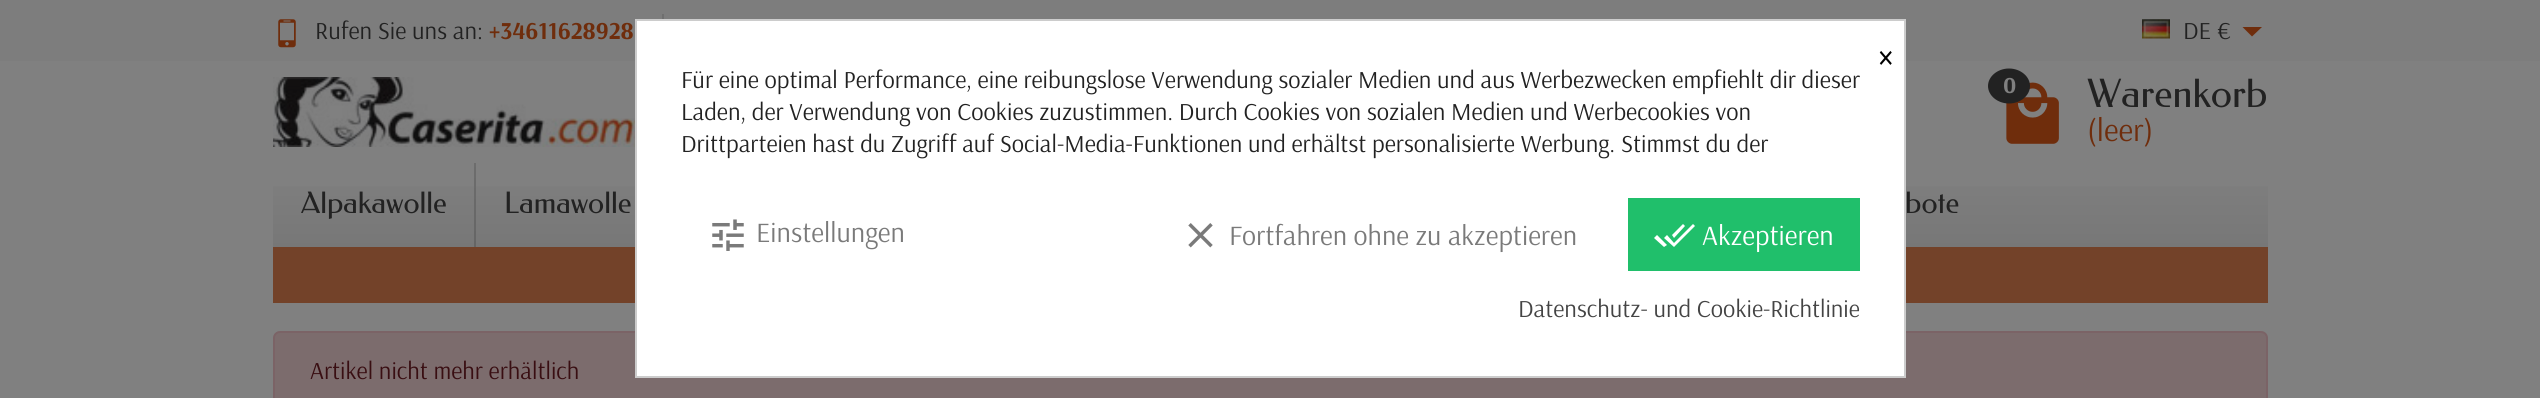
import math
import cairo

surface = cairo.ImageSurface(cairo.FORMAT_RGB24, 2540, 398)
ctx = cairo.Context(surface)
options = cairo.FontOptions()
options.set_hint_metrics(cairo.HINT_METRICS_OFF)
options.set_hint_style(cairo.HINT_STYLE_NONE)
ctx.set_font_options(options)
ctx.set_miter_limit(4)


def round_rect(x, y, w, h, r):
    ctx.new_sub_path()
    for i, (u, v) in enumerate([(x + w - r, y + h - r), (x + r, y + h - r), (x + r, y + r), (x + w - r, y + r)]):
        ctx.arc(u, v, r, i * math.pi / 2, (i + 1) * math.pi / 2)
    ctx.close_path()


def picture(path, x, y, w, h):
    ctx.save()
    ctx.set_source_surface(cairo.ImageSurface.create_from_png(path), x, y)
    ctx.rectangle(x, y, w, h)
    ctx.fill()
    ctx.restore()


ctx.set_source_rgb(0.502, 0.502, 0.502)
ctx.paint()
ctx.set_source_rgb(0.49, 0.49, 0.49)
ctx.rectangle(0, 0, 2540, 61)
ctx.fill()
ctx.set_source_rgb(0.435, 0.435, 0.435)
ctx.rectangle(662, 14, 2, 5)
ctx.fill()
picture("img1.png", 278, 19, 18, 29)
ctx.select_font_face("Arsenal")
ctx.set_font_size(24.5)
ctx.set_source_rgb(0.133, 0.133, 0.133)
ctx.move_to(315, 39)
ctx.show_text("Rufen Sie uns an:")
ctx.select_font_face("Arsenal", cairo.FONT_SLANT_NORMAL, cairo.FONT_WEIGHT_BOLD)
ctx.set_source_rgb(0.435, 0.176, 0.047)
ctx.move_to(489, 39)
ctx.show_text("+34611628928")
picture("img2.png", 2142, 19, 28, 20)
ctx.select_font_face("Arsenal")
ctx.set_source_rgb(0.133, 0.133, 0.133)
ctx.move_to(2183, 39)
ctx.show_text("DE €")
ctx.set_source_rgb(0.435, 0.176, 0.047)
ctx.new_path()
ctx.move_to(2242.5, 27)
ctx.line_to(2262, 27)
ctx.line_to(2252, 36.5)
ctx.close_path()
ctx.fill()
picture("img3.png", 273, 77, 362, 70)
picture("img4.png", 2006, 82, 53, 62)
ctx.set_source_rgb(0.133, 0.133, 0.133)
ctx.new_path()
ctx.move_to(2009, 68.5)
ctx.curve_to(2020.5, 68.5, 2030, 76.5, 2030, 86)
ctx.curve_to(2030, 95.5, 2020.5, 103.5, 2009, 103.5)
ctx.curve_to(1997.5, 103.5, 1988, 95.5, 1988, 86)
ctx.curve_to(1988, 76.5, 1997.5, 68.5, 2009, 68.5)
ctx.close_path()
ctx.fill()
ctx.select_font_face("Arsenal", cairo.FONT_SLANT_NORMAL, cairo.FONT_WEIGHT_BOLD)
ctx.set_font_size(23)
ctx.set_source_rgb(0.502, 0.502, 0.502)
ctx.move_to(2003, 93)
ctx.show_text("0")
ctx.select_font_face("Federo")
ctx.set_font_size(39)
ctx.set_source_rgb(0.133, 0.133, 0.133)
ctx.move_to(2087, 107)
ctx.show_text("Warenkorb")
ctx.select_font_face("Arsenal")
ctx.set_font_size(32)
ctx.set_source_rgb(0.435, 0.176, 0.047)
ctx.move_to(2087, 141)
ctx.show_text("(leer)")
gradient = cairo.LinearGradient(1271, 163, 1271, 247)
gradient.add_color_stop_rgba(0, 0.502, 0.502, 0.502, 1)
gradient.add_color_stop_rgba(1, 0.467, 0.467, 0.467, 1)
ctx.set_source(gradient)
ctx.rectangle(273, 186, 1995, 61)
ctx.fill()
gradient = cairo.LinearGradient(1271, 163, 1271, 247)
gradient.add_color_stop_rgba(0, 0.427, 0.427, 0.427, 1)
gradient.add_color_stop_rgba(1, 0.396, 0.396, 0.396, 1)
ctx.set_source(gradient)
ctx.rectangle(474, 163, 2, 84)
ctx.fill()
ctx.select_font_face("Federo")
ctx.set_font_size(29.5)
ctx.set_source_rgb(0.133, 0.133, 0.133)
ctx.move_to(301, 213)
ctx.show_text("Alpakawolle")
ctx.move_to(504, 213)
ctx.show_text("Lamawolle")
ctx.move_to(1905, 213)
ctx.show_text("bote")
ctx.set_source_rgb(0.451, 0.259, 0.161)
ctx.rectangle(273, 247, 1995, 56)
ctx.fill()
ctx.set_source_rgb(0.486, 0.424, 0.427)
round_rect(274, 332, 1993, 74, 6)
ctx.fill_preserve()
ctx.set_source_rgb(0.482, 0.388, 0.4)
ctx.stroke()
ctx.set_source_rgb(1, 1, 1)
ctx.rectangle(636, 20, 1269, 357)
ctx.fill_preserve()
ctx.set_source_rgb(0.8, 0.8, 0.8)
ctx.stroke()
ctx.select_font_face("Arsenal")
ctx.set_font_size(44)
ctx.set_source_rgb(0, 0, 0)
ctx.move_to(1878, 72)
ctx.show_text("×")
ctx.set_font_size(24.5)
ctx.set_source_rgb(0.133, 0.133, 0.133)
ctx.move_to(681, 88)
ctx.show_text("Für eine optimal Performance, eine reibungslose Verwendung sozialer Medien und aus Werbezwecken empfiehlt dir dieser")
ctx.move_to(681, 120)
ctx.show_text("Laden, der Verwendung von Cookies zuzustimmen. Durch Cookies von sozialen Medien und Werbecookies von")
ctx.move_to(681, 152)
ctx.show_text("Drittparteien hast du Zugriff auf Social-Media-Funktionen und erhältst personalisierte Werbung. Stimmst du der")
picture("img5.png", 712, 219, 32, 32)
ctx.set_font_size(28)
ctx.set_source_rgb(0.478, 0.478, 0.478)
ctx.move_to(756, 242)
ctx.show_text("Einstellungen")
picture("img6.png", 1188, 223, 25, 25)
ctx.move_to(1229, 245)
ctx.show_text("Fortfahren ohne zu akzeptieren")
ctx.set_source_rgb(0.125, 0.749, 0.42)
ctx.rectangle(1628, 198, 232, 73)
ctx.fill()
ctx.set_source_rgb(1, 1, 1)
ctx.new_path()
ctx.move_to(1654, 238)
ctx.line_to(1657, 235)
ctx.line_to(1667, 245)
ctx.line_to(1664, 247)
ctx.close_path()
ctx.move_to(1693, 224)
ctx.line_to(1695, 226)
ctx.line_to(1674, 247)
ctx.line_to(1664, 238)
ctx.line_to(1667, 235)
ctx.line_to(1674, 243)
ctx.close_path()
ctx.move_to(1685, 226)
ctx.line_to(1674, 238)
ctx.line_to(1672, 235)
ctx.line_to(1683, 224)
ctx.close_path()
ctx.fill()
ctx.move_to(1702, 245)
ctx.show_text("Akzeptieren")
ctx.set_font_size(24.5)
ctx.set_source_rgb(0.267, 0.267, 0.267)
ctx.move_to(1518, 317)
ctx.show_text("Datenschutz- und Cookie-Richtlinie")
ctx.set_source_rgb(0.224, 0.055, 0.071)
ctx.move_to(310, 379)
ctx.show_text("Artikel nicht mehr erhältlich")
surface.write_to_png("page.png")
